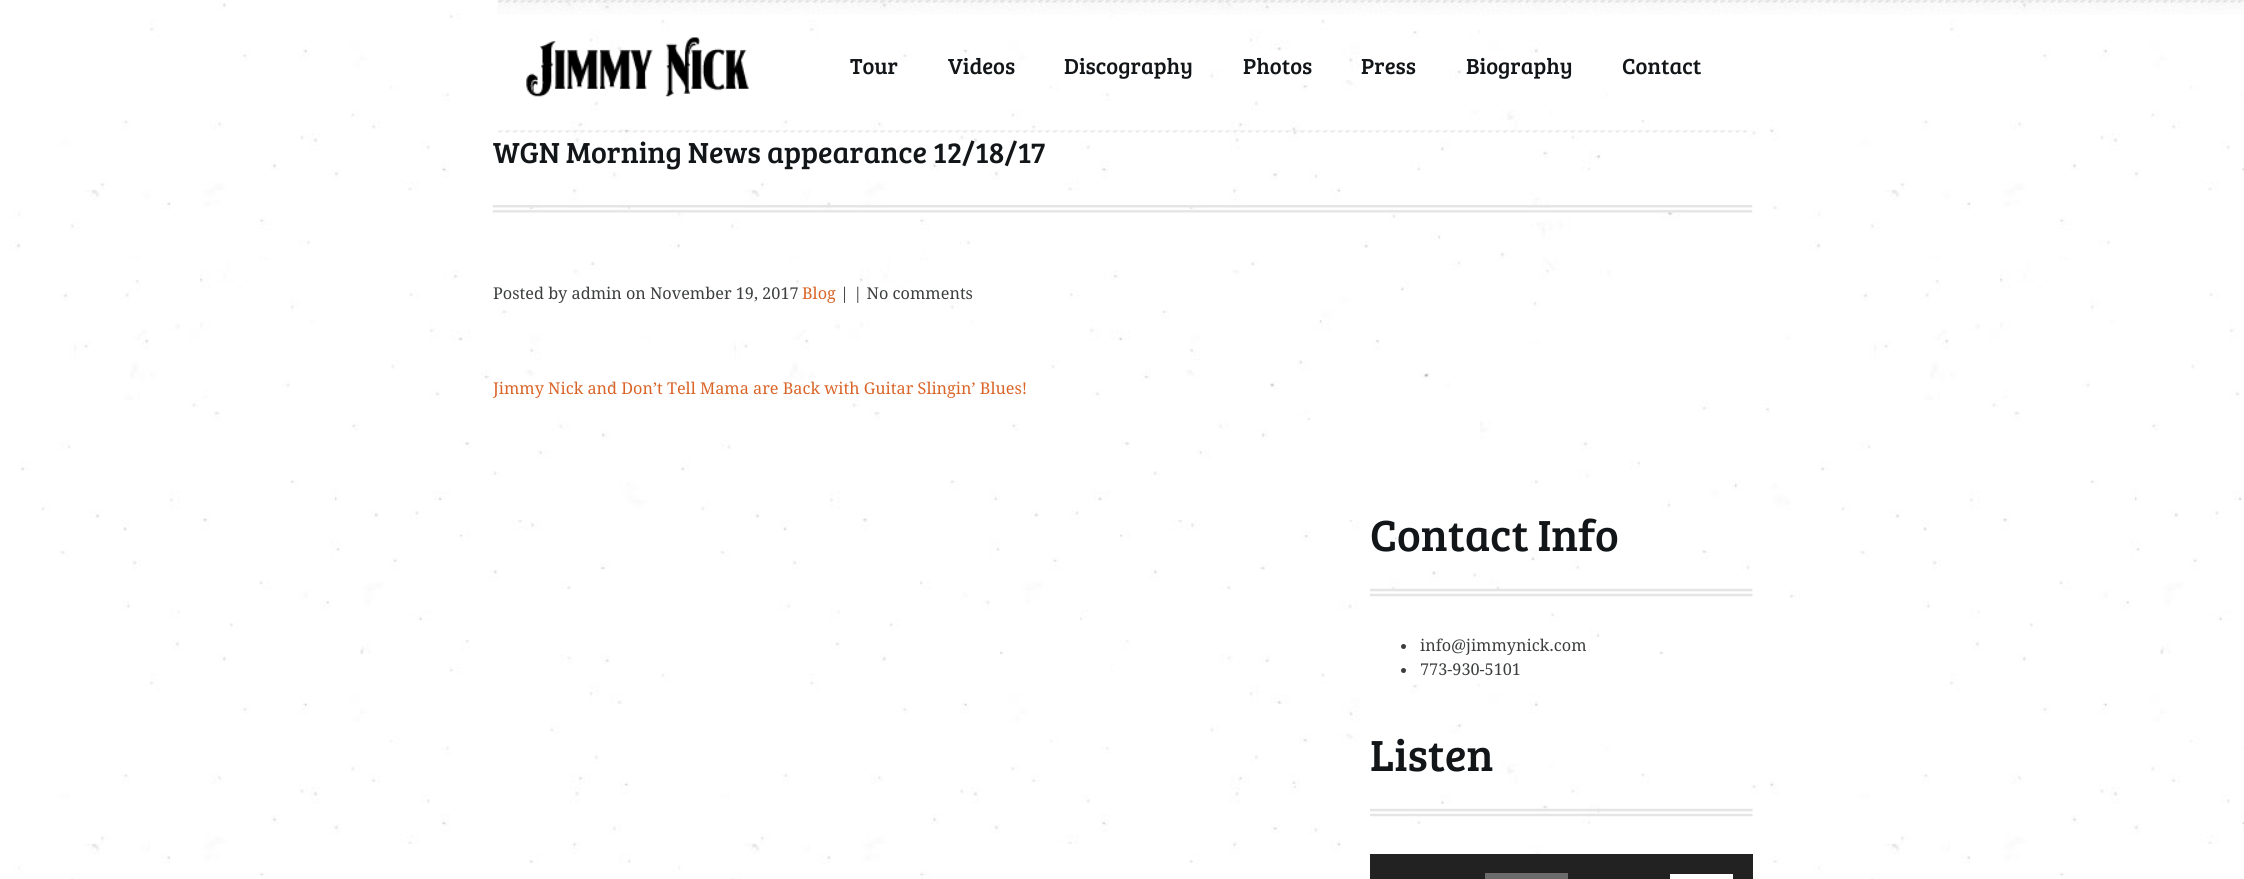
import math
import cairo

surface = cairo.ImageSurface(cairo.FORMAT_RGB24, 2244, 879)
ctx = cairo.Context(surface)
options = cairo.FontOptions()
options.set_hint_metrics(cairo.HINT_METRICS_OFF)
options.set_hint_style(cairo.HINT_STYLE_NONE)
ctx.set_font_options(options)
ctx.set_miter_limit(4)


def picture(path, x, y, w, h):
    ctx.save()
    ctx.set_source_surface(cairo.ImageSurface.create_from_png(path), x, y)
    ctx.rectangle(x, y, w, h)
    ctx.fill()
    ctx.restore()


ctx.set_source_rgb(1, 1, 1)
ctx.paint()
picture("img1.png", 10, 0, 2234, 879)
picture("img2.png", 498, 130, 1250, 3)
picture("img3.png", 497, 0, 1747, 15)
picture("img4.png", 526, 37, 223, 60)
ctx.select_font_face("Bree Serif")
ctx.set_font_size(22.5)
ctx.set_source_rgb(0.078, 0.086, 0.094)
ctx.move_to(850, 74)
ctx.show_text("Tour")
ctx.move_to(948, 74)
ctx.show_text("Videos")
ctx.move_to(1064, 74)
ctx.show_text("Discography")
ctx.move_to(1243, 74)
ctx.show_text("Photos")
ctx.move_to(1361, 74)
ctx.show_text("Press")
ctx.move_to(1466, 74)
ctx.show_text("Biography")
ctx.move_to(1622, 74)
ctx.show_text("Contact")
picture("img5.png", 492, 205, 1261, 8)
ctx.save()
ctx.rectangle(493, 133, 1260, 377)
ctx.clip()
ctx.set_font_size(30)
ctx.move_to(493, 163)
ctx.show_text("WGN Morning News appearance 12/18/17")
ctx.restore()
ctx.select_font_face("Droid Serif")
ctx.set_font_size(16.25)
ctx.set_source_rgb(0.235, 0.243, 0.247)
ctx.move_to(493, 299)
ctx.show_text("Posted by admin on November 19, 2017")
ctx.set_source_rgb(0.855, 0.392, 0.153)
ctx.move_to(802, 299)
ctx.show_text("Blog")
ctx.set_source_rgb(0.235, 0.243, 0.247)
ctx.move_to(840, 299)
ctx.show_text("| | No comments")
ctx.set_source_rgb(0.855, 0.392, 0.153)
ctx.move_to(493, 394)
ctx.show_text("Jimmy Nick and Don’t Tell Mama are Back with Guitar Slingin’ Blues!")
picture("img6.png", 1370, 588, 383, 9)
ctx.select_font_face("Bree Serif")
ctx.set_font_size(45)
ctx.set_source_rgb(0.078, 0.086, 0.094)
ctx.move_to(1370, 551)
ctx.show_text("Contact Info")
ctx.set_source_rgb(0.235, 0.243, 0.247)
ctx.new_path()
ctx.arc(1403.5, 646.5, 2.5, 0, 2 * math.pi)
ctx.fill()
ctx.select_font_face("Droid Serif")
ctx.set_font_size(16.25)
ctx.move_to(1420, 651)
ctx.show_text("info@jimmynick.com")
ctx.new_path()
ctx.arc(1403.5, 670.5, 2.5, 0, 2 * math.pi)
ctx.fill()
ctx.move_to(1420, 675)
ctx.show_text("773-930-5101")
picture("img7.png", 1370, 808, 383, 9)
ctx.select_font_face("Bree Serif")
ctx.set_font_size(45)
ctx.set_source_rgb(0.078, 0.086, 0.094)
ctx.move_to(1370, 771)
ctx.show_text("Listen")
ctx.set_source_rgb(0.133, 0.133, 0.133)
ctx.rectangle(1370, 854, 383, 25)
ctx.fill()
ctx.set_source_rgb(0.42, 0.42, 0.42)
ctx.rectangle(1485, 873, 83, 6)
ctx.fill()
ctx.set_source_rgb(1, 1, 1)
ctx.rectangle(1670, 874, 63, 5)
ctx.fill()
surface.write_to_png("page.png")
